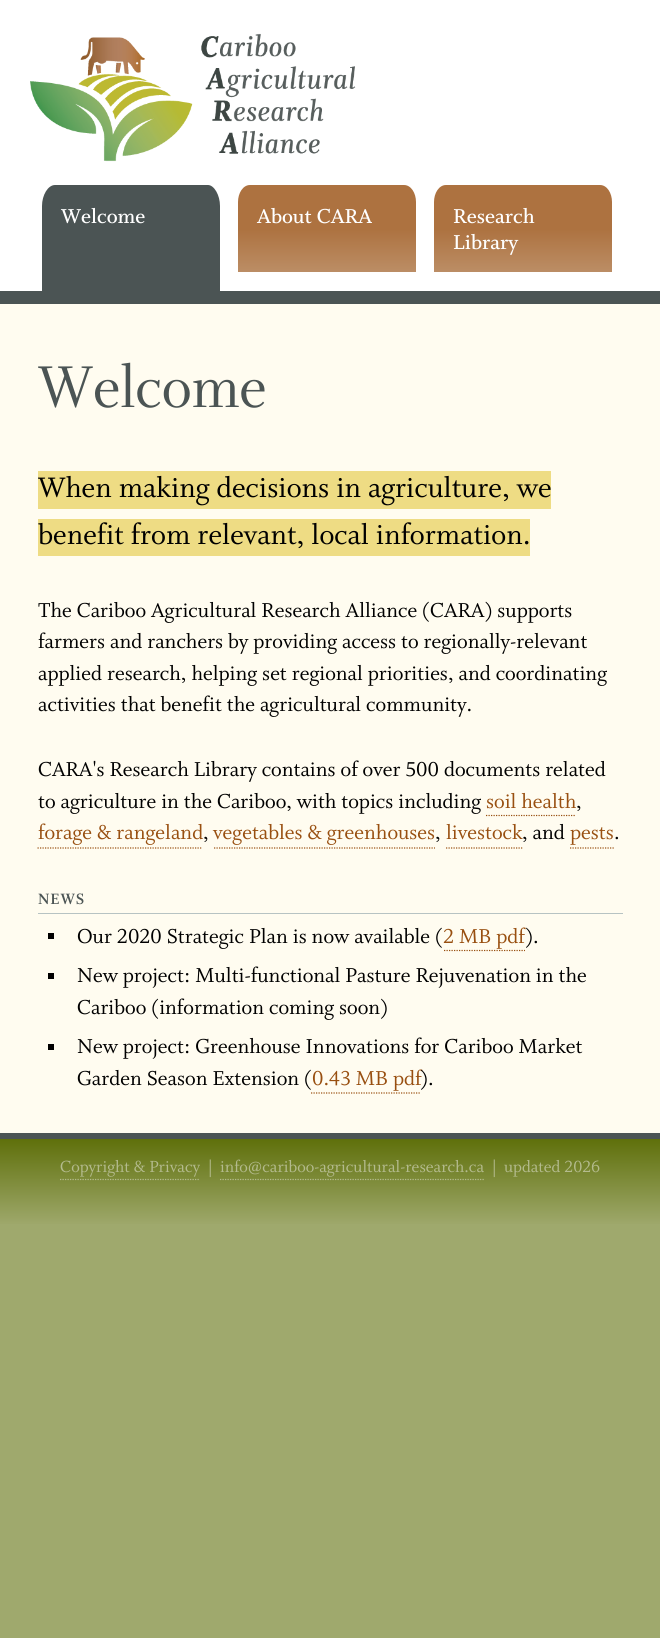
import math
import cairo

surface = cairo.ImageSurface(cairo.FORMAT_RGB24, 660, 1638)
ctx = cairo.Context(surface)
options = cairo.FontOptions()
options.set_hint_metrics(cairo.HINT_METRICS_OFF)
options.set_hint_style(cairo.HINT_STYLE_NONE)
ctx.set_font_options(options)
ctx.set_miter_limit(4)


def spaced_text(x, y, s, letter, word):
    ctx.move_to(x, y)
    for ch in s:
        ctx.show_text(ch)
        ctx.rel_move_to(letter + word * (ch == ' '), 0)


def picture(path, x, y, w, h):
    ctx.save()
    ctx.set_source_surface(cairo.ImageSurface.create_from_png(path), x, y)
    ctx.rectangle(x, y, w, h)
    ctx.fill()
    ctx.restore()


ctx.set_source_rgb(0.624, 0.663, 0.427)
ctx.paint()
ctx.set_source_rgb(1, 1, 1)
ctx.rectangle(0, 0, 660, 291)
ctx.fill()
ctx.set_source_rgb(0.294, 0.329, 0.329)
ctx.rectangle(0, 291, 660, 13)
ctx.fill()
picture("img1.png", 30, 33, 326, 129)
ctx.new_path()
ctx.move_to(55, 185)
ctx.line_to(208, 185)
ctx.curve_to(214, 185, 220, 195, 220, 206)
ctx.line_to(220, 291)
ctx.line_to(42, 291)
ctx.line_to(42, 206)
ctx.curve_to(42, 195, 48, 185, 55, 185)
ctx.close_path()
ctx.fill()
ctx.select_font_face("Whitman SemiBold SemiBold")
ctx.set_font_size(22.5)
ctx.set_source_rgb(1, 1, 1)
ctx.move_to(61, 223)
ctx.show_text("Welcome")
gradient = cairo.LinearGradient(327, 273, 327, 185)
gradient.add_color_stop_rgba(0, 0.737, 0.557, 0.4, 1)
gradient.add_color_stop_rgba(0.5, 0.678, 0.447, 0.251, 1)
ctx.set_source(gradient)
ctx.new_path()
ctx.move_to(250, 185)
ctx.line_to(404, 185)
ctx.curve_to(411, 185, 416, 193, 416, 202)
ctx.line_to(416, 272)
ctx.line_to(238, 272)
ctx.line_to(238, 202)
ctx.curve_to(238, 193, 243, 185, 250, 185)
ctx.close_path()
ctx.fill()
ctx.set_source_rgb(1, 1, 1)
ctx.move_to(257, 223)
ctx.show_text("About CARA")
gradient = cairo.LinearGradient(523, 273, 523, 185)
gradient.add_color_stop_rgba(0, 0.737, 0.557, 0.4, 1)
gradient.add_color_stop_rgba(0.5, 0.678, 0.447, 0.251, 1)
ctx.set_source(gradient)
ctx.new_path()
ctx.move_to(446, 185)
ctx.line_to(600, 185)
ctx.curve_to(607, 185, 612, 193, 612, 202)
ctx.line_to(612, 272)
ctx.line_to(434, 272)
ctx.line_to(434, 202)
ctx.curve_to(434, 193, 439, 185, 446, 185)
ctx.close_path()
ctx.fill()
ctx.set_source_rgb(1, 1, 1)
ctx.move_to(453, 223)
ctx.show_text("Research")
ctx.move_to(453, 249)
ctx.show_text("Library")
ctx.set_source_rgb(1, 0.988, 0.941)
ctx.rectangle(0, 304, 660, 829)
ctx.fill()
ctx.select_font_face("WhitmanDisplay")
ctx.set_font_size(63)
ctx.set_source_rgb(0.294, 0.329, 0.329)
spaced_text(38, 407, "Welcome", 0.5, 0)
ctx.set_source_rgb(0.933, 0.863, 0.518)
ctx.rectangle(38, 471, 513, 38)
ctx.fill()
ctx.select_font_face("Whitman")
ctx.set_font_size(31.5)
ctx.set_source_rgb(0, 0, 0)
ctx.move_to(38, 497)
ctx.show_text("When making decisions in agriculture, we")
ctx.set_source_rgb(0.933, 0.863, 0.518)
ctx.rectangle(38, 519, 492, 37)
ctx.fill()
ctx.set_source_rgb(0, 0, 0)
ctx.move_to(38, 544)
ctx.show_text("benefit from relevant, local information.")
ctx.set_font_size(22.5)
ctx.move_to(38, 617)
ctx.show_text("The Cariboo Agricultural Research Alliance (CARA) supports")
ctx.move_to(38, 648)
ctx.show_text("farmers and ranchers by providing access to regionally-relevant")
ctx.move_to(38, 680)
ctx.show_text("applied research, helping set regional priorities, and coordinating")
ctx.move_to(38, 711)
ctx.show_text("activities that benefit the agricultural community.")
ctx.move_to(38, 776)
ctx.show_text("CARA's Research Library contains of over 500 documents related")
ctx.move_to(38, 808)
ctx.show_text("to agriculture in the Cariboo, with topics including")
ctx.set_source_rgb(0.596, 0.31, 0.063)
ctx.move_to(486, 808)
ctx.show_text("soil health")
ctx.new_path()
ctx.move_to(486, 815.5)
ctx.line_to(576, 815.5)
ctx.set_line_width(1.2)
ctx.set_dash([1.25, 1.25])
ctx.stroke()
ctx.set_source_rgb(0, 0, 0)
ctx.move_to(576, 808)
ctx.show_text(",")
ctx.set_source_rgb(0.596, 0.31, 0.063)
ctx.move_to(38, 839)
ctx.show_text("forage & rangeland")
ctx.new_path()
ctx.move_to(37.5, 848)
ctx.line_to(202.5, 848)
ctx.stroke()
ctx.set_source_rgb(0, 0, 0)
ctx.move_to(203, 839)
ctx.show_text(",")
ctx.set_source_rgb(0.596, 0.31, 0.063)
ctx.move_to(213, 839)
ctx.show_text("vegetables & greenhouses")
ctx.new_path()
ctx.move_to(214, 848)
ctx.line_to(435, 848)
ctx.stroke()
ctx.set_source_rgb(0, 0, 0)
ctx.move_to(435, 839)
ctx.show_text(",")
ctx.set_source_rgb(0.596, 0.31, 0.063)
ctx.move_to(446, 839)
ctx.show_text("livestock")
ctx.new_path()
ctx.move_to(446, 848)
ctx.line_to(522.5, 848)
ctx.stroke()
ctx.set_source_rgb(0, 0, 0)
ctx.move_to(522, 839)
ctx.show_text(", and")
ctx.set_source_rgb(0.596, 0.31, 0.063)
ctx.move_to(570, 839)
ctx.show_text("pests")
ctx.new_path()
ctx.move_to(570, 848)
ctx.line_to(614, 848)
ctx.stroke()
ctx.set_source_rgb(0, 0, 0)
ctx.move_to(614, 839)
ctx.show_text(".")
ctx.set_source_rgb(0.718, 0.765, 0.765)
ctx.rectangle(38, 913, 585, 1)
ctx.fill()
ctx.select_font_face("WhitmanDisplay", cairo.FONT_SLANT_NORMAL, cairo.FONT_WEIGHT_BOLD)
ctx.set_font_size(16)
ctx.set_source_rgb(0.294, 0.329, 0.329)
spaced_text(38, 904, "NEWS", 1, 0)
ctx.set_source_rgb(0, 0, 0)
ctx.rectangle(48, 933, 6, 6)
ctx.fill()
ctx.select_font_face("Whitman")
ctx.set_font_size(22.5)
ctx.move_to(77, 943)
ctx.show_text("Our 2020 Strategic Plan is now available (")
ctx.set_source_rgb(0.596, 0.31, 0.063)
ctx.move_to(443, 943)
ctx.show_text("2 MB pdf")
ctx.new_path()
ctx.move_to(444, 950.5)
ctx.line_to(525, 950.5)
ctx.stroke()
ctx.set_source_rgb(0, 0, 0)
ctx.move_to(525, 943)
ctx.show_text(").")
ctx.rectangle(48, 973, 6, 6)
ctx.fill()
ctx.move_to(77, 982)
ctx.show_text("New project: Multi-functional Pasture Rejuvenation in the")
ctx.move_to(77, 1014)
ctx.show_text("Cariboo (information coming soon)")
ctx.rectangle(48, 1044, 6, 6)
ctx.fill()
ctx.move_to(77, 1053)
ctx.show_text("New project: Greenhouse Innovations for Cariboo Market")
ctx.move_to(77, 1085)
ctx.show_text("Garden Season Extension (")
ctx.set_source_rgb(0.596, 0.31, 0.063)
ctx.move_to(312, 1085)
ctx.show_text("0.43 MB pdf")
ctx.new_path()
ctx.move_to(311, 1093)
ctx.line_to(420, 1093)
ctx.stroke()
ctx.set_source_rgb(0, 0, 0)
ctx.move_to(420, 1085)
ctx.show_text(").")
gradient = cairo.LinearGradient(330, 1226, 330, 1139)
gradient.add_color_stop_rgba(0, 0.624, 0.663, 0.427, 1)
gradient.add_color_stop_rgba(1, 0.373, 0.439, 0.043, 1)
ctx.set_source(gradient)
ctx.rectangle(0, 1139, 660, 85)
ctx.fill()
ctx.set_source_rgb(0.294, 0.329, 0.329)
ctx.rectangle(0, 1133, 660, 6)
ctx.fill()
ctx.set_font_size(18)
ctx.set_source_rgb(0.706, 0.733, 0.557)
ctx.move_to(60, 1172)
ctx.show_text("Copyright & Privacy")
ctx.new_path()
ctx.move_to(60, 1179.5)
ctx.line_to(200, 1179.5)
ctx.stroke()
ctx.move_to(208, 1172)
ctx.show_text("|")
ctx.move_to(220, 1172)
ctx.show_text("info@cariboo-agricultural-research.ca")
ctx.new_path()
ctx.move_to(220, 1179.5)
ctx.line_to(484, 1179.5)
ctx.stroke()
ctx.move_to(492, 1172)
ctx.show_text("|")
ctx.move_to(504, 1172)
ctx.show_text("updated 2026")
surface.write_to_png("page.png")
